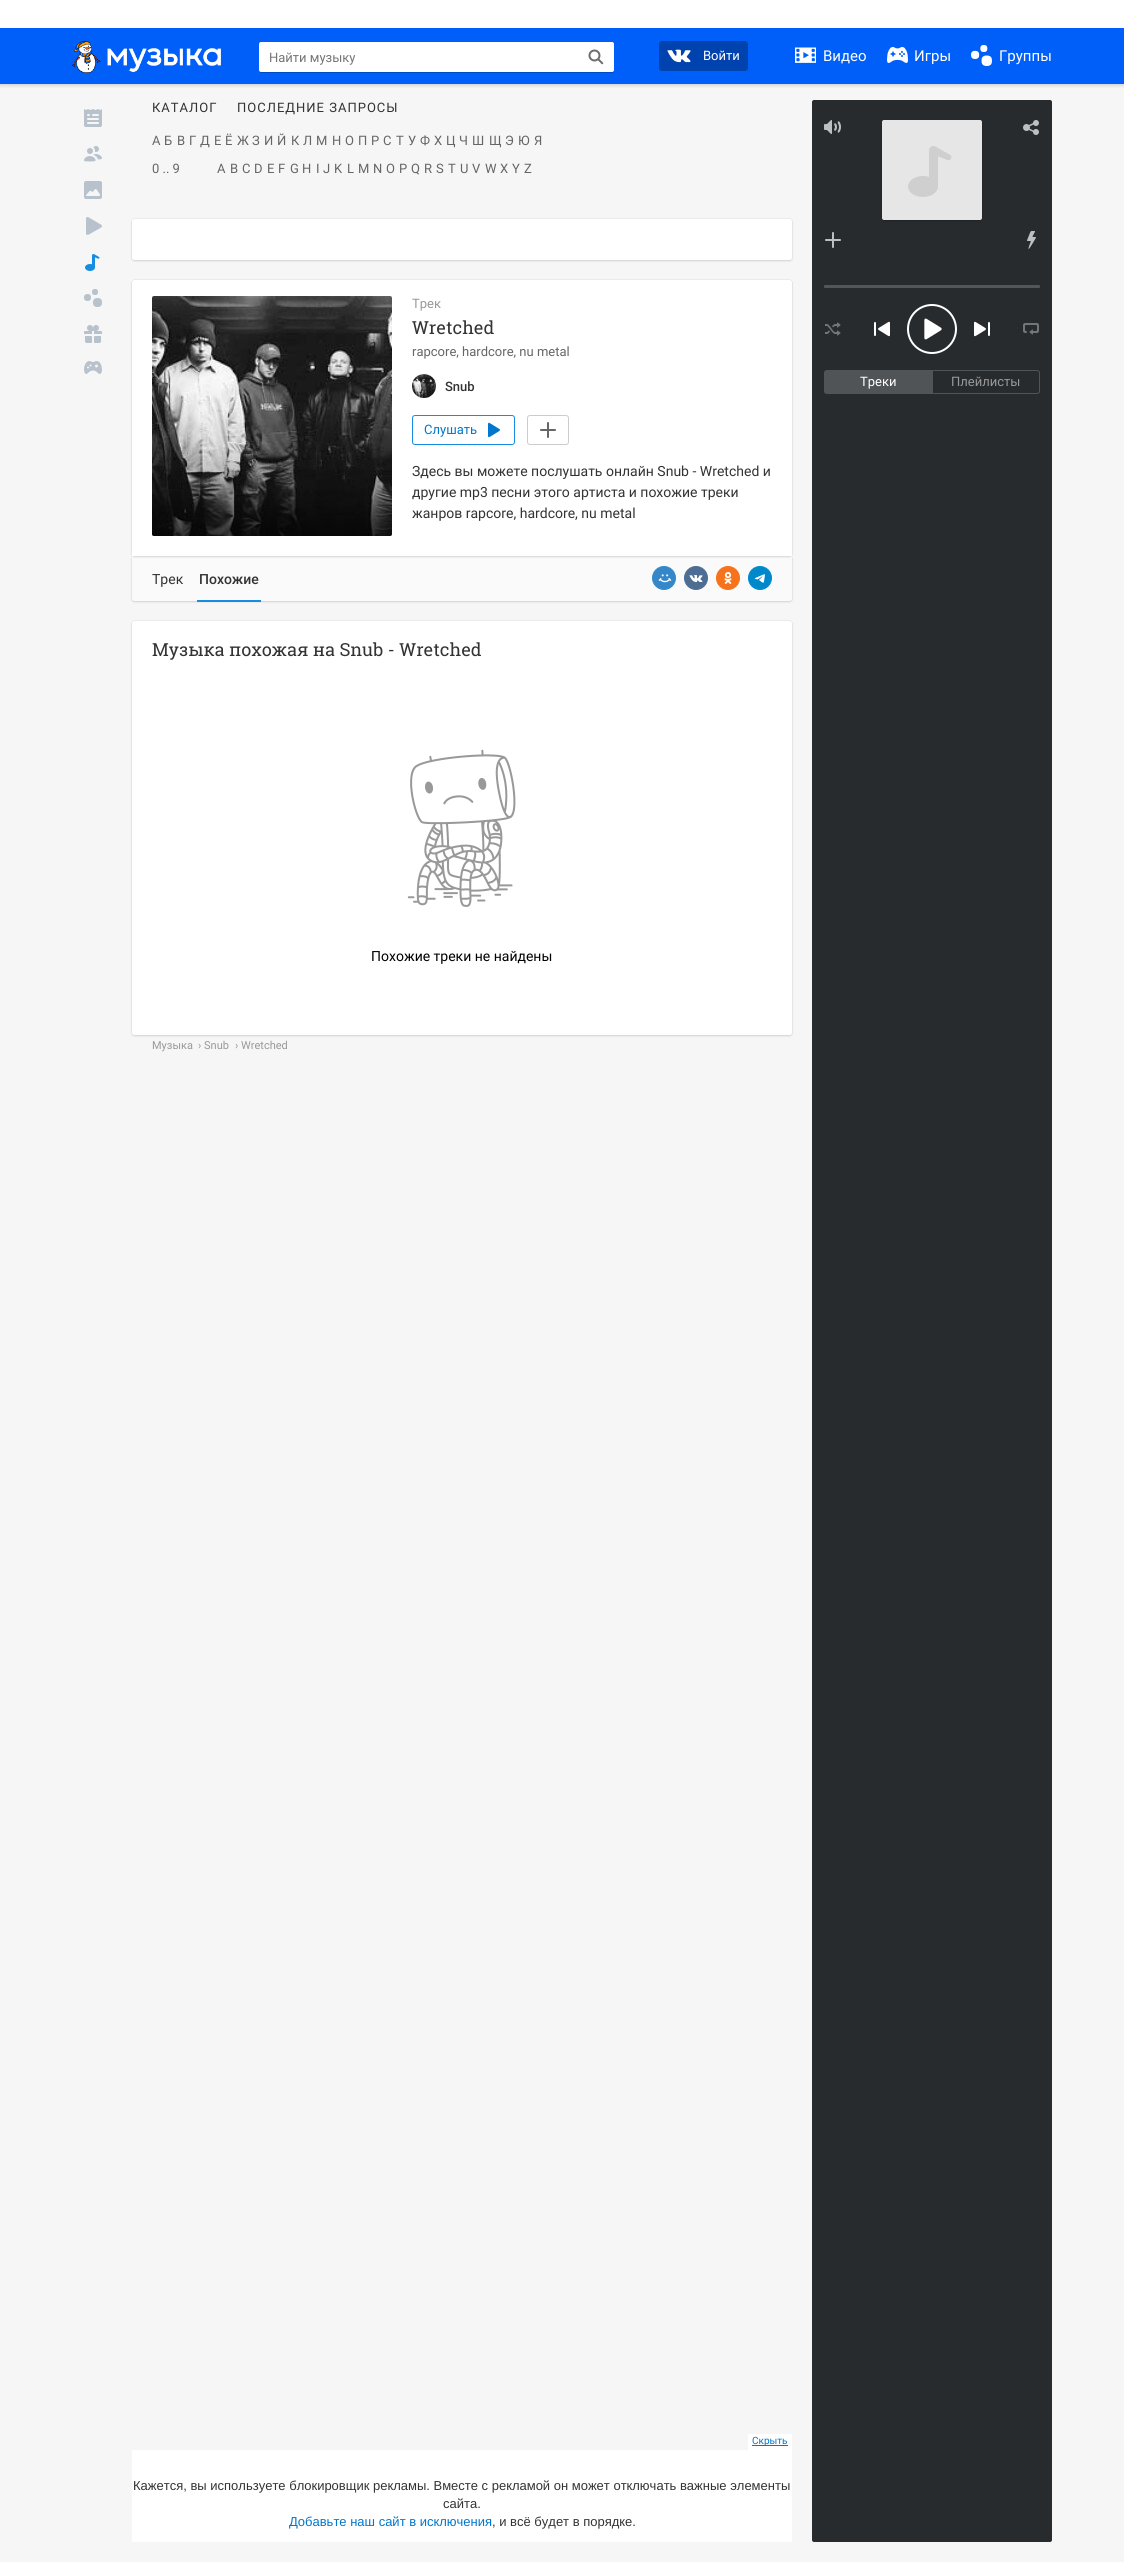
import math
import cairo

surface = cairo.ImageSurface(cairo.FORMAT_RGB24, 1124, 2562)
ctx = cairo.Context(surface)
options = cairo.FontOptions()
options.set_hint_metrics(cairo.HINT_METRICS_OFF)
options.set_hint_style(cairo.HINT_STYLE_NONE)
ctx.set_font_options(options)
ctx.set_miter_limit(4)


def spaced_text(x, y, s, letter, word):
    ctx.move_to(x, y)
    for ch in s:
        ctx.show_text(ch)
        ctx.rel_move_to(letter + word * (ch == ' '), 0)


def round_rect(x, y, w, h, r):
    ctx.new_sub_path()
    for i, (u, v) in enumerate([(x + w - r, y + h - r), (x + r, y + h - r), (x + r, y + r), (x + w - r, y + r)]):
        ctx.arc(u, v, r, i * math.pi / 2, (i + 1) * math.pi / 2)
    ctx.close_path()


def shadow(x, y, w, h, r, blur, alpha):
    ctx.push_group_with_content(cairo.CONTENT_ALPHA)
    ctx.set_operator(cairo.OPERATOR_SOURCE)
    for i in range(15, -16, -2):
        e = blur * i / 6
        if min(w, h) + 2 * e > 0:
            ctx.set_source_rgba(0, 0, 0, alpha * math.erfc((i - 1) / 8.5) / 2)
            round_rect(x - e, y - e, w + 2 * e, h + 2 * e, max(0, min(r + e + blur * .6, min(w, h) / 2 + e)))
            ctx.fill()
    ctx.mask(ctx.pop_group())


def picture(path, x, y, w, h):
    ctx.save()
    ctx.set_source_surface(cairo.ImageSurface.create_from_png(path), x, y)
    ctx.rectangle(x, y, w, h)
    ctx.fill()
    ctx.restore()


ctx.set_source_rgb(0.961, 0.961, 0.961)
ctx.paint()
ctx.set_source_rgb(0, 0, 0)
shadow(0, 29, 1124, 56, 0, 2, 0.2)
ctx.set_source_rgb(1, 1, 1)
ctx.rectangle(0, 0, 1124, 28)
ctx.fill()
ctx.set_source_rgb(0, 0.373, 0.976)
ctx.rectangle(0, 28, 1124, 56)
ctx.fill()
picture("img1.png", 72, 41, 149, 32)
ctx.set_source_rgb(0, 0.298, 0.78)
ctx.new_path()
ctx.move_to(259, 70)
ctx.curve_to(259, 71, 259, 73, 261, 73)
ctx.line_to(612, 73)
ctx.curve_to(614, 73, 614, 71, 614, 70)
ctx.curve_to(614, 71, 613, 72, 612, 72)
ctx.line_to(261, 72)
ctx.curve_to(260, 72, 259, 71, 259, 70)
ctx.close_path()
ctx.fill()
ctx.set_source_rgb(1, 1, 1)
round_rect(259, 42, 355, 30, 2)
ctx.fill()
ctx.select_font_face("Roboto")
ctx.set_font_size(13)
ctx.set_source_rgb(0.459, 0.459, 0.459)
ctx.move_to(269, 62)
ctx.show_text("Найти музыку")
picture("img2.png", 588, 49, 16, 16)
ctx.set_source_rgb(0, 0.263, 0.682)
round_rect(659, 41, 89, 30, 3)
ctx.fill()
picture("img3.png", 667, 49, 24, 14)
ctx.set_source_rgb(1, 1, 1)
ctx.move_to(703, 60)
ctx.show_text("Войти")
picture("img4.png", 795, 47, 21, 16)
ctx.set_font_size(15)
ctx.move_to(823, 61)
ctx.show_text("Видео")
picture("img5.png", 887, 47, 21, 16)
ctx.move_to(914, 61)
ctx.show_text("Игры")
picture("img6.png", 971, 45, 21, 21)
ctx.move_to(999, 61)
ctx.show_text("Группы")
picture("img7.png", 84, 109, 18, 18)
picture("img8.png", 84, 146, 18, 16)
picture("img9.png", 84, 181, 18, 18)
picture("img10.png", 86, 217, 16, 18)
picture("img11.png", 85, 254, 15, 17)
picture("img12.png", 84, 289, 18, 18)
picture("img13.png", 84, 325, 18, 18)
picture("img14.png", 84, 361, 18, 13)
ctx.set_font_size(13)
ctx.set_source_rgb(0.2, 0.2, 0.2)
spaced_text(152, 112, "КАТАЛОГ", 1, 0)
spaced_text(237, 112, "ПОСЛЕДНИЕ ЗАПРОСЫ", 1, 0)
ctx.set_source_rgb(0.4, 0.4, 0.4)
ctx.move_to(152, 145)
ctx.show_text("А")
ctx.move_to(164, 145)
ctx.show_text("Б")
ctx.move_to(177, 145)
ctx.show_text("В")
ctx.move_to(189, 145)
ctx.show_text("Г")
ctx.move_to(200, 145)
ctx.show_text("Д")
ctx.move_to(214, 145)
ctx.show_text("Е")
ctx.move_to(225, 145)
ctx.show_text("Ё")
ctx.move_to(237, 145)
ctx.show_text("Ж")
ctx.move_to(252, 145)
ctx.show_text("З")
ctx.move_to(264, 145)
ctx.show_text("И")
ctx.move_to(277, 145)
ctx.show_text("Й")
ctx.move_to(291, 145)
ctx.show_text("К")
ctx.move_to(303, 145)
ctx.show_text("Л")
ctx.move_to(316, 145)
ctx.show_text("М")
ctx.move_to(332, 145)
ctx.show_text("Н")
ctx.move_to(345, 145)
ctx.show_text("О")
ctx.move_to(358, 145)
ctx.show_text("П")
ctx.move_to(371, 145)
ctx.show_text("Р")
ctx.move_to(383, 145)
ctx.show_text("С")
ctx.move_to(396, 145)
ctx.show_text("Т")
ctx.move_to(408, 145)
ctx.show_text("У")
ctx.move_to(420, 145)
ctx.show_text("Ф")
ctx.move_to(434, 145)
ctx.show_text("Х")
ctx.move_to(446, 145)
ctx.show_text("Ц")
ctx.move_to(459, 145)
ctx.show_text("Ч")
ctx.move_to(472, 145)
ctx.show_text("Ш")
ctx.move_to(489, 145)
ctx.show_text("Щ")
ctx.move_to(505, 145)
ctx.show_text("Э")
ctx.move_to(518, 145)
ctx.show_text("Ю")
ctx.move_to(534, 145)
ctx.show_text("Я")
ctx.move_to(152, 173)
ctx.show_text("0 .. 9")
ctx.move_to(217, 173)
ctx.show_text("A")
ctx.move_to(230, 173)
ctx.show_text("B")
ctx.move_to(242, 173)
ctx.show_text("C")
ctx.move_to(254, 173)
ctx.show_text("D")
ctx.move_to(267, 173)
ctx.show_text("E")
ctx.move_to(278, 173)
ctx.show_text("F")
ctx.move_to(290, 173)
ctx.show_text("G")
ctx.move_to(302, 173)
ctx.show_text("H")
ctx.move_to(316, 173)
ctx.show_text("I")
ctx.move_to(323, 173)
ctx.show_text("J")
ctx.move_to(334, 173)
ctx.show_text("K")
ctx.move_to(347, 173)
ctx.show_text("L")
ctx.move_to(358, 173)
ctx.show_text("M")
ctx.move_to(373, 173)
ctx.show_text("N")
ctx.move_to(386, 173)
ctx.show_text("O")
ctx.move_to(399, 173)
ctx.show_text("P")
ctx.move_to(411, 173)
ctx.show_text("Q")
ctx.move_to(424, 173)
ctx.show_text("R")
ctx.move_to(436, 173)
ctx.show_text("S")
ctx.move_to(448, 173)
ctx.show_text("T")
ctx.move_to(460, 173)
ctx.show_text("U")
ctx.move_to(472, 173)
ctx.show_text("V")
ctx.move_to(485, 173)
ctx.show_text("W")
ctx.move_to(500, 173)
ctx.show_text("X")
ctx.move_to(512, 173)
ctx.show_text("Y")
ctx.move_to(524, 173)
ctx.show_text("Z")
ctx.set_source_rgb(0, 0, 0)
shadow(132, 220, 660, 41, 2, 1, 0.12)
shadow(132, 219, 660, 41, 2, 0.5, 0.15)
ctx.set_source_rgb(1, 1, 1)
round_rect(132, 219, 660, 41, 2)
ctx.fill()
ctx.set_source_rgb(0, 0, 0)
shadow(132, 557, 660, 45, 2, 1, 0.12)
shadow(132, 556, 660, 45, 2, 0.5, 0.15)
ctx.set_source_rgb(0.98, 0.98, 0.98)
ctx.new_path()
ctx.move_to(132, 556)
ctx.line_to(792, 556)
ctx.line_to(792, 599)
ctx.curve_to(792, 600, 791, 601, 790, 601)
ctx.line_to(134, 601)
ctx.curve_to(133, 601, 132, 600, 132, 599)
ctx.close_path()
ctx.fill()
ctx.set_source_rgb(0, 0, 0)
shadow(132, 281, 660, 276, 2, 1, 0.12)
shadow(132, 280, 660, 276, 2, 0.5, 0.15)
ctx.set_source_rgb(1, 1, 1)
ctx.new_path()
ctx.move_to(134, 280)
ctx.line_to(790, 280)
ctx.curve_to(791, 280, 792, 281, 792, 282)
ctx.line_to(792, 556)
ctx.line_to(132, 556)
ctx.line_to(132, 282)
ctx.curve_to(132, 281, 133, 280, 134, 280)
ctx.close_path()
ctx.fill()
picture("img15.png", 152, 296, 240, 240)
gradient = cairo.LinearGradient(272, 416, 272, 536)
gradient.add_color_stop_rgba(0, 0, 0, 0, 0)
gradient.add_color_stop_rgba(0.22, 0, 0, 0, 0.05)
gradient.add_color_stop_rgba(0.34, 0, 0, 0, 0.1)
gradient.add_color_stop_rgba(0.62, 0, 0, 0, 0.3)
gradient.add_color_stop_rgba(1, 0, 0, 0, 0.7)
ctx.set_source(gradient)
ctx.new_path()
ctx.move_to(152, 416)
ctx.line_to(392, 416)
ctx.line_to(392, 534)
ctx.curve_to(392, 535, 391, 536, 390, 536)
ctx.line_to(154, 536)
ctx.curve_to(153, 536, 152, 535, 152, 534)
ctx.close_path()
ctx.fill()
ctx.set_source_rgb(0.6, 0.6, 0.6)
ctx.move_to(412, 308)
ctx.show_text("Трек")
ctx.select_font_face("Roboto Slab")
ctx.set_font_size(18)
ctx.set_source_rgb(0.2, 0.2, 0.2)
ctx.move_to(412, 334)
ctx.show_text("Wretched")
ctx.select_font_face("Roboto")
ctx.set_font_size(13)
ctx.set_source_rgb(0.4, 0.4, 0.4)
ctx.move_to(412, 356)
ctx.show_text("rapcore, hardcore, nu metal")
picture("img16.png", 412, 374, 24, 24)
ctx.select_font_face("Roboto Medium")
ctx.set_source_rgb(0.2, 0.2, 0.2)
ctx.move_to(445, 391)
ctx.show_text("Snub")
round_rect(412.5, 415.5, 102, 29, 2.5)
ctx.set_source_rgb(0.086, 0.553, 0.886)
ctx.set_line_width(1)
ctx.stroke()
ctx.select_font_face("Roboto")
ctx.set_source_rgb(0, 0.467, 0.8)
ctx.move_to(424, 434)
ctx.show_text("Слушать")
picture("img17.png", 488, 422, 12, 16)
round_rect(527.5, 415.5, 41, 29, 2.5)
ctx.set_source_rgb(0.8, 0.8, 0.8)
ctx.stroke()
picture("img18.png", 540, 422, 16, 16)
ctx.set_font_size(14)
ctx.set_source_rgb(0.2, 0.2, 0.2)
ctx.move_to(412, 476)
ctx.show_text("Здесь вы можете послушать онлайн Snub - Wretched и")
ctx.move_to(412, 497)
ctx.show_text("другие mp3 песни этого артиста и похожие треки")
ctx.move_to(412, 518)
ctx.show_text("жанров rapcore, hardcore, nu metal")
ctx.move_to(152, 584)
ctx.show_text("Трек")
ctx.set_source_rgb(0.086, 0.553, 0.886)
ctx.rectangle(197, 600, 64, 2)
ctx.fill()
ctx.select_font_face("Roboto Medium")
ctx.set_source_rgb(0.2, 0.2, 0.2)
ctx.move_to(199, 584)
ctx.show_text("Похожие")
ctx.set_source_rgb(0.204, 0.533, 0.788)
ctx.new_path()
ctx.arc(664, 578, 11.5, 0, 2 * math.pi)
ctx.fill_preserve()
ctx.stroke()
picture("img19.png", 658, 574, 14, 9)
ctx.set_source_rgb(0.302, 0.427, 0.576)
ctx.arc(696, 578, 11.5, 0, 2 * math.pi)
ctx.fill_preserve()
ctx.stroke()
picture("img20.png", 689, 575, 14, 7)
ctx.set_source_rgb(0.961, 0.451, 0.114)
ctx.arc(728, 578, 11.5, 0, 2 * math.pi)
ctx.fill_preserve()
ctx.stroke()
picture("img21.png", 724, 572, 8, 12)
ctx.set_source_rgb(0, 0.533, 0.8)
ctx.arc(760, 578, 11.5, 0, 2 * math.pi)
ctx.fill_preserve()
ctx.stroke()
picture("img22.png", 754, 574, 11, 9)
ctx.set_source_rgb(0, 0, 0)
shadow(132, 622, 660, 414, 2, 1, 0.12)
shadow(132, 621, 660, 414, 2, 0.5, 0.15)
ctx.set_source_rgb(1, 1, 1)
round_rect(132, 621, 660, 414, 2)
ctx.fill()
ctx.select_font_face("Roboto Slab")
ctx.set_font_size(18)
ctx.set_source_rgb(0.2, 0.2, 0.2)
ctx.move_to(152, 656)
ctx.show_text("Музыка похожая на Snub - Wretched")
picture("img23.png", 407, 749, 109, 158)
ctx.select_font_face("Roboto")
ctx.set_font_size(14)
ctx.set_source_rgb(0, 0, 0)
ctx.move_to(371, 961)
ctx.show_text("Похожие треки не найдены")
ctx.set_font_size(11)
ctx.set_source_rgb(0.6, 0.6, 0.6)
ctx.move_to(152, 1049)
ctx.show_text("Музыка")
ctx.move_to(198, 1049)
ctx.show_text("› Snub")
ctx.move_to(235, 1049)
ctx.show_text("› Wretched")
ctx.set_source_rgb(0.157, 0.169, 0.18)
round_rect(812, 100, 240, 2442, 2)
ctx.fill()
ctx.set_source_rgb(0, 0, 0)
shadow(882, 121, 100, 100, 2, 1, 0.24)
ctx.set_source_rgb(0.902, 0.902, 0.902)
round_rect(882, 120, 100, 100, 2)
ctx.fill()
picture("img24.png", 908, 146, 44, 51)
picture("img25.png", 824, 120, 17, 14)
picture("img26.png", 1023, 120, 16, 15)
picture("img27.png", 825, 232, 16, 16)
picture("img28.png", 1027, 231, 9, 18)
ctx.set_source_rgb(0.325, 0.333, 0.345)
round_rect(824, 285, 216, 3, 1)
ctx.fill()
picture("img29.png", 825, 322, 16, 14)
picture("img30.png", 874, 321, 16, 16)
ctx.arc(932, 329, 24, 0, 2 * math.pi)
ctx.set_source_rgb(1, 1, 1)
ctx.set_line_width(2)
ctx.stroke()
picture("img31.png", 924, 318, 18, 22)
picture("img32.png", 974, 321, 16, 16)
picture("img33.png", 1023, 323, 16, 12)
ctx.set_source_rgb(0.318, 0.329, 0.341)
ctx.new_path()
ctx.move_to(827, 370.5)
ctx.line_to(931.5, 370.5)
ctx.line_to(931.5, 393.5)
ctx.line_to(827, 393.5)
ctx.curve_to(825.5, 393.5, 824.5, 392.5, 824.5, 391)
ctx.line_to(824.5, 373)
ctx.curve_to(824.5, 371.5, 825.5, 370.5, 827, 370.5)
ctx.close_path()
ctx.fill_preserve()
ctx.set_line_width(1)
ctx.stroke()
ctx.set_font_size(13)
ctx.set_source_rgb(1, 1, 1)
ctx.move_to(860, 386)
ctx.show_text("Треки")
ctx.new_path()
ctx.move_to(932.5, 370.5)
ctx.line_to(1037, 370.5)
ctx.curve_to(1038.5, 370.5, 1039.5, 371.5, 1039.5, 373)
ctx.line_to(1039.5, 391)
ctx.curve_to(1039.5, 392.5, 1038.5, 393.5, 1037, 393.5)
ctx.line_to(932.5, 393.5)
ctx.close_path()
ctx.set_source_rgb(0.318, 0.329, 0.341)
ctx.stroke()
ctx.set_source_rgb(0.6, 0.6, 0.6)
ctx.move_to(951, 386)
ctx.show_text("Плейлисты")
ctx.set_source_rgb(1, 1, 1)
ctx.rectangle(132, 2450, 660, 92)
ctx.fill()
ctx.rectangle(748, 2434, 44, 16)
ctx.fill()
ctx.set_source_rgb(0, 0.467, 0.8)
ctx.rectangle(752, 2445, 36, 1)
ctx.fill()
ctx.set_font_size(10)
ctx.move_to(752, 2444)
ctx.show_text("Скрыть")
ctx.select_font_face("Liberation Sans")
ctx.set_font_size(13)
ctx.set_source_rgb(0.2, 0.2, 0.2)
ctx.move_to(133, 2490)
ctx.show_text("Кажется, вы используете блокировщик рекламы. Вместе с рекламой он может отключать важные элементы")
ctx.move_to(443, 2508)
ctx.show_text("сайта.")
ctx.set_source_rgb(0, 0.467, 0.8)
ctx.move_to(289, 2526)
ctx.show_text("Добавьте наш сайт в исключения")
ctx.set_source_rgb(0.2, 0.2, 0.2)
ctx.move_to(492, 2526)
ctx.show_text(", и всё будет в порядке.")
surface.write_to_png("page.png")
